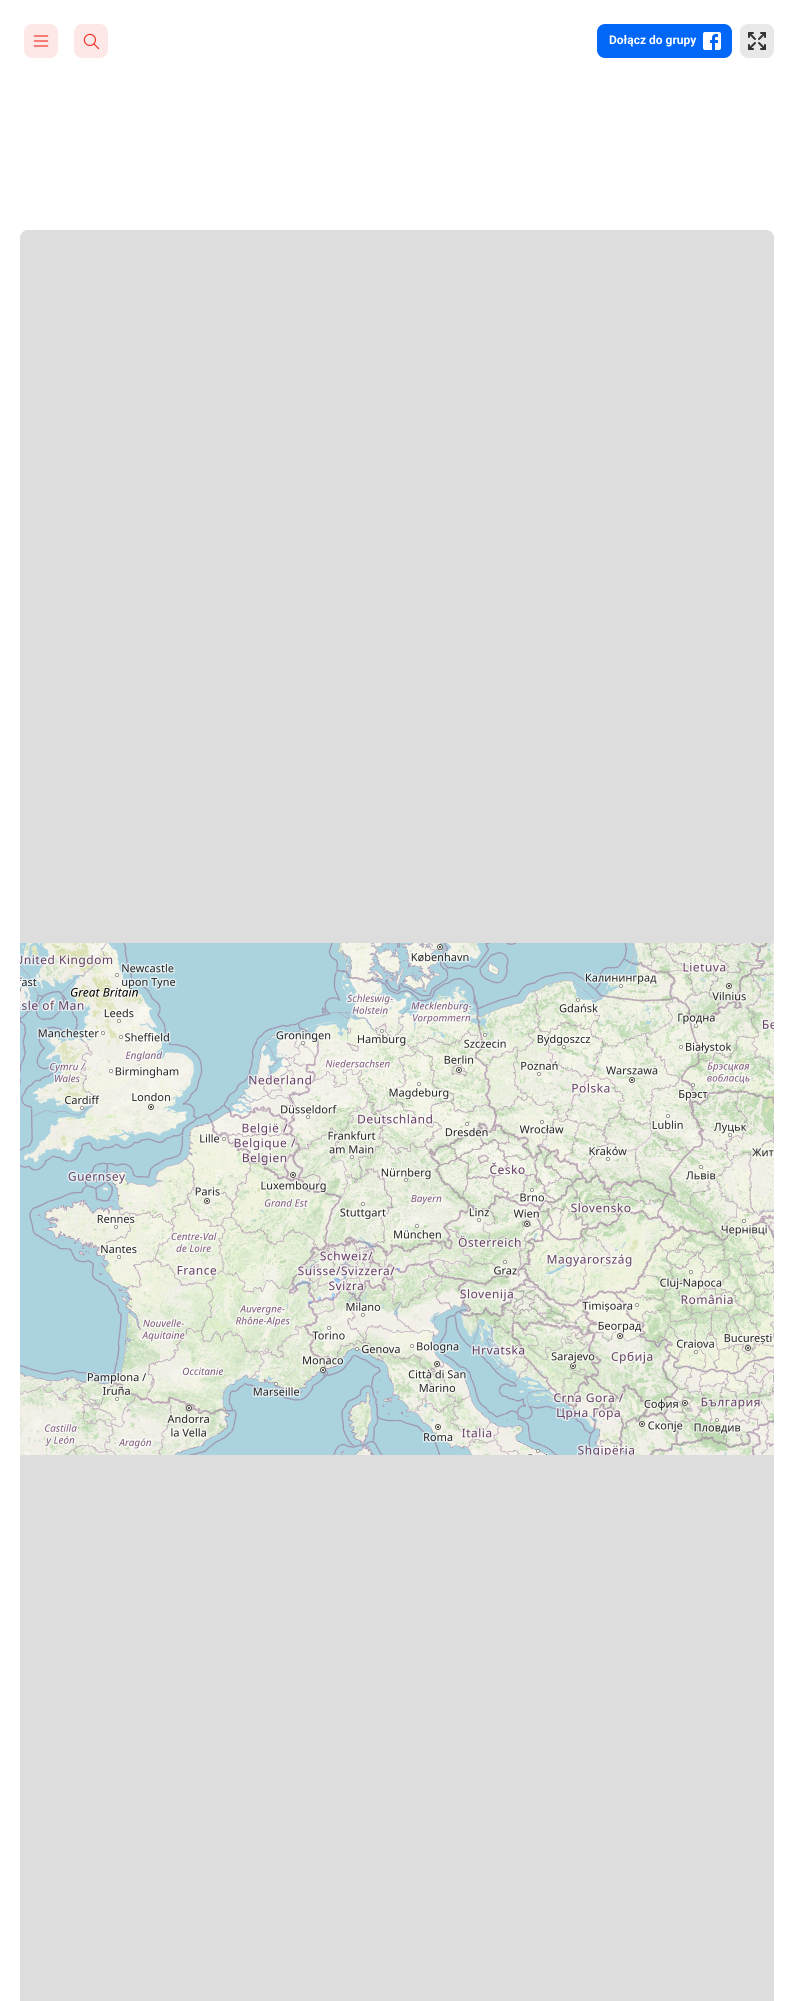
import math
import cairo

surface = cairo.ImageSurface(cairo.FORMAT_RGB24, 794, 2001)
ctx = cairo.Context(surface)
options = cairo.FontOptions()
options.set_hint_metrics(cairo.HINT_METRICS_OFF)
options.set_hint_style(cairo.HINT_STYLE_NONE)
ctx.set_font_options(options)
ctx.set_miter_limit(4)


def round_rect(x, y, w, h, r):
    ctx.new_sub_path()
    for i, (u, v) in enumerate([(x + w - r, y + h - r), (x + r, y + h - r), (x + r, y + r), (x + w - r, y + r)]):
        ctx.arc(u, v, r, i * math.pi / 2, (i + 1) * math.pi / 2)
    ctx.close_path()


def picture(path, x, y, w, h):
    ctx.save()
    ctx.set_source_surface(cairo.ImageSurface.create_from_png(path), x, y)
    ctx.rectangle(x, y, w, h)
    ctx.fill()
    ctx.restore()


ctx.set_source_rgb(1, 1, 1)
ctx.paint()
ctx.set_source_rgb(0.996, 0.91, 0.906)
round_rect(24, 24, 34, 34, 8)
ctx.fill()
picture("img1.png", 33, 35, 16, 12)
round_rect(74, 24, 34, 34, 8)
ctx.fill()
picture("img2.png", 83, 33, 17, 17)
ctx.set_source_rgb(0, 0.404, 0.976)
round_rect(597, 24, 135, 34, 8)
ctx.fill()
ctx.select_font_face("Roboto", cairo.FONT_SLANT_NORMAL, cairo.FONT_WEIGHT_BOLD)
ctx.set_font_size(12)
ctx.set_source_rgb(1, 1, 1)
ctx.move_to(609, 44)
ctx.show_text("Dołącz do grupy")
picture("img3.png", 703, 32, 18, 18)
ctx.set_source_rgb(0.91, 0.91, 0.91)
round_rect(740.5, 24.5, 33, 33, 7.5)
ctx.fill_preserve()
ctx.set_line_width(1)
ctx.stroke()
picture("img4.png", 748, 32, 18, 18)
ctx.set_source_rgb(0.867, 0.867, 0.867)
ctx.new_path()
ctx.move_to(28, 230)
ctx.line_to(766, 230)
ctx.curve_to(770.5, 230, 774, 233.5, 774, 238)
ctx.line_to(774, 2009)
ctx.line_to(20, 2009)
ctx.line_to(20, 238)
ctx.curve_to(20, 233.5, 23.5, 230, 28, 230)
ctx.close_path()
ctx.fill()
picture("img5.png", 20, 943, 134, 256)
picture("img6.png", 154, 943, 256, 256)
picture("img7.png", 410, 943, 256, 256)
picture("img8.png", 666, 943, 108, 256)
picture("img9.png", 20, 1199, 134, 256)
picture("img10.png", 154, 1199, 256, 256)
picture("img11.png", 410, 1199, 256, 256)
picture("img12.png", 666, 1199, 108, 256)
surface.write_to_png("page.png")
